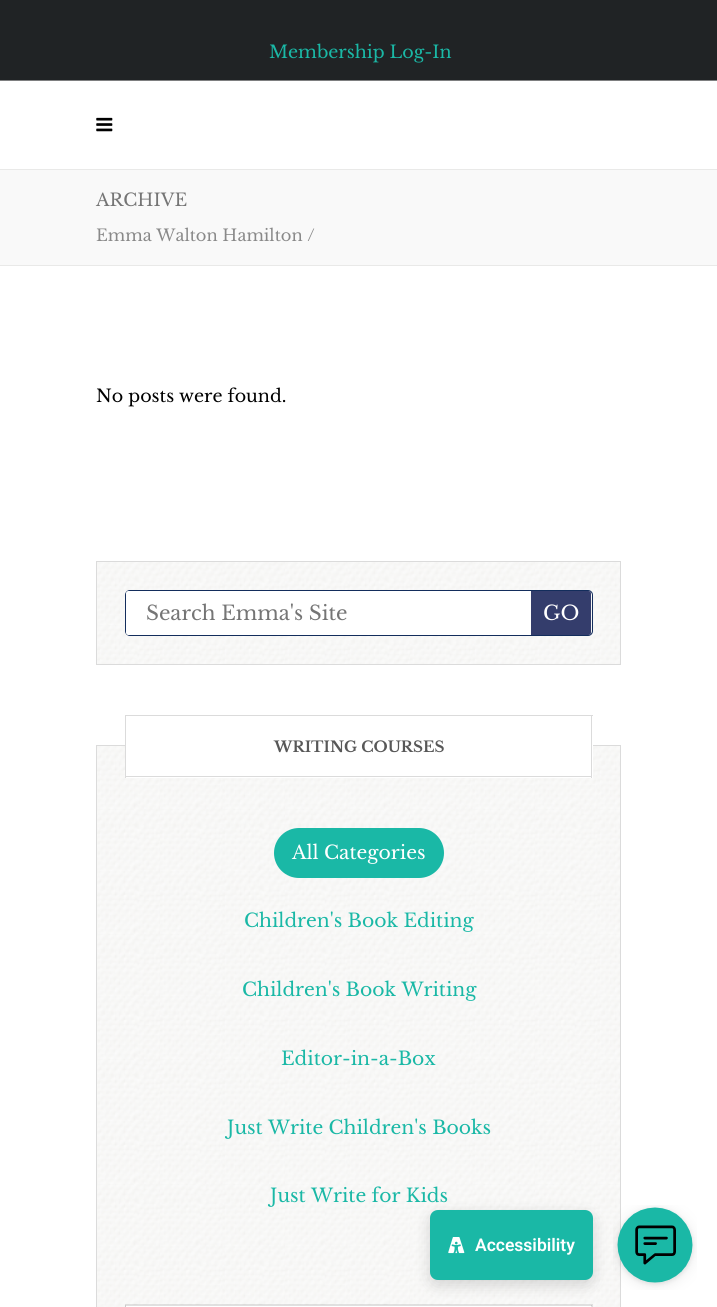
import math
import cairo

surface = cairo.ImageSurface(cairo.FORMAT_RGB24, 717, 1307)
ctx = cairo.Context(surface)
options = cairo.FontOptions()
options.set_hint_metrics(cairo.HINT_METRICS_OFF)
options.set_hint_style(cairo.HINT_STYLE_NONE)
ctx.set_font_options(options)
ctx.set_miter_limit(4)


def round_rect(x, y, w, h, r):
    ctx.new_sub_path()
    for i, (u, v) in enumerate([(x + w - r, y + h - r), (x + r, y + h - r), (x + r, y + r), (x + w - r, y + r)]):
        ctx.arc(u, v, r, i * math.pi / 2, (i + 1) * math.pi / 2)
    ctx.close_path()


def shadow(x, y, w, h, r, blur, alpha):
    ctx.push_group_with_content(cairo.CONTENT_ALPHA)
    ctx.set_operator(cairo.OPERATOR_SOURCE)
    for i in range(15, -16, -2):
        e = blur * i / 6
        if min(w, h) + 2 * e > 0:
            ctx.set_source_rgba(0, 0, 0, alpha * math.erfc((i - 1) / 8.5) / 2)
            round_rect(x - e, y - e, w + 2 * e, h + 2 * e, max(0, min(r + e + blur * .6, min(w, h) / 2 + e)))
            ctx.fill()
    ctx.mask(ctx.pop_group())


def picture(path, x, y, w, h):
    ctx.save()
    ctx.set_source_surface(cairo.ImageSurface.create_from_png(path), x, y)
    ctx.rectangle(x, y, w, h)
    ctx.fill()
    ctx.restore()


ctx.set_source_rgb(1, 1, 1)
ctx.paint()
ctx.set_source_rgb(0.125, 0.137, 0.145)
ctx.rectangle(0, 0, 717, 80)
ctx.fill()
ctx.set_source_rgb(0.494, 0.498, 0.502)
ctx.rectangle(0, 80, 717, 1)
ctx.fill()
ctx.select_font_face("Libre Baskerville")
ctx.set_font_size(17.5)
ctx.set_source_rgb(0.102, 0.722, 0.651)
ctx.move_to(269, 58)
ctx.show_text("Membership Log-In")
ctx.set_source_rgb(0.914, 0.914, 0.91)
ctx.rectangle(0, 169, 717, 1)
ctx.fill()
picture("img1.png", 96, 117, 17, 15)
ctx.set_source_rgb(0.976, 0.976, 0.973)
ctx.rectangle(0, 170, 717, 95)
ctx.fill()
ctx.set_source_rgb(0.914, 0.914, 0.91)
ctx.rectangle(0, 265, 717, 1)
ctx.fill()
ctx.set_source_rgb(0.459, 0.459, 0.459)
ctx.move_to(96, 206)
ctx.show_text("ARCHIVE")
ctx.set_font_size(16.25)
ctx.set_source_rgb(0.537, 0.537, 0.537)
ctx.move_to(96, 241)
ctx.show_text("Emma Walton Hamilton /")
ctx.set_font_size(17.5)
ctx.set_source_rgb(0, 0, 0)
ctx.move_to(96, 402)
ctx.show_text("No posts were found.")
picture("img2.png", 97, 562, 523, 102)
ctx.rectangle(96.5, 561.5, 524, 103)
ctx.set_source_rgb(0.859, 0.859, 0.859)
ctx.set_line_width(1)
ctx.stroke()
round_rect(125.5, 590.5, 467, 45, 4.5)
ctx.set_source_rgb(0.078, 0.176, 0.361)
ctx.stroke()
ctx.set_source_rgb(1, 1, 1)
ctx.new_path()
ctx.move_to(128.5, 591)
ctx.line_to(531, 591)
ctx.line_to(531, 635)
ctx.line_to(128.5, 635)
ctx.curve_to(127, 635, 126, 634, 126, 632.5)
ctx.line_to(126, 593.5)
ctx.curve_to(126, 592, 127, 591, 128.5, 591)
ctx.close_path()
ctx.fill()
ctx.set_font_size(20)
ctx.set_source_rgb(0.459, 0.459, 0.459)
ctx.move_to(146, 620)
ctx.show_text("Search Emma's Site")
ctx.set_source_rgb(0.204, 0.239, 0.424)
ctx.new_path()
ctx.move_to(531, 591)
ctx.line_to(588.5, 591)
ctx.curve_to(590, 591, 591, 592, 591, 593.5)
ctx.line_to(591, 632.5)
ctx.curve_to(591, 634, 590, 635, 588.5, 635)
ctx.line_to(531, 635)
ctx.close_path()
ctx.fill()
ctx.set_source_rgb(1, 1, 1)
ctx.move_to(543, 620)
ctx.show_text("GO")
picture("img3.png", 97, 746, 523, 561)
ctx.rectangle(96.5, 745.5, 524, 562)
ctx.set_source_rgb(0.859, 0.859, 0.859)
ctx.stroke()
ctx.set_source_rgb(1, 1, 1)
ctx.rectangle(126, 745, 467, 33)
ctx.fill()
ctx.set_source_rgb(0.859, 0.859, 0.859)
ctx.rectangle(125, 715, 468, 1)
ctx.fill()
ctx.rectangle(591, 715, 1, 63)
ctx.fill()
ctx.rectangle(125, 715, 1, 63)
ctx.fill()
ctx.select_font_face("Libre Baskerville", cairo.FONT_SLANT_NORMAL, cairo.FONT_WEIGHT_BOLD)
ctx.set_font_size(15)
ctx.set_source_rgb(0.345, 0.345, 0.345)
ctx.move_to(274, 752)
ctx.show_text("WRITING COURSES")
ctx.set_source_rgb(0.859, 0.859, 0.859)
ctx.rectangle(126, 776, 465, 1)
ctx.fill()
ctx.set_source_rgb(0.102, 0.722, 0.651)
round_rect(274, 828, 170, 50, 25)
ctx.fill()
ctx.select_font_face("Libre Baskerville")
ctx.set_font_size(18.75)
ctx.set_source_rgb(1, 1, 1)
ctx.move_to(292, 859)
ctx.show_text("All Categories")
ctx.set_source_rgb(0.102, 0.722, 0.651)
ctx.move_to(244, 927)
ctx.show_text("Children's Book Editing")
ctx.move_to(242, 996)
ctx.show_text("Children's Book Writing")
ctx.move_to(281, 1065)
ctx.show_text("Editor-in-a-Box")
ctx.move_to(227, 1134)
ctx.show_text("Just Write Children's Books")
ctx.move_to(270, 1202)
ctx.show_text("Just Write for Kids")
ctx.set_source_rgb(1, 1, 1)
ctx.rectangle(125.5, 1305.5, 467, 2)
ctx.fill_preserve()
ctx.set_source_rgb(0.878, 0.878, 0.878)
ctx.stroke()
ctx.set_source_rgba(0, 0, 0, 0.1)
ctx.rectangle(125, 1304, 468, 1)
ctx.fill()
ctx.set_source_rgb(0.792, 0.792, 0.792)
ctx.rectangle(125, 1305, 1, 2)
ctx.fill()
ctx.set_source_rgba(0, 0, 0, 0.1)
ctx.rectangle(591, 1305, 1, 2)
ctx.fill()
ctx.set_source_rgb(0, 0, 0)
shadow(430, 1215, 163, 70, 8, 7.5, 0.15)
ctx.set_source_rgb(0.102, 0.722, 0.651)
round_rect(430, 1210, 163, 70, 8)
ctx.fill()
picture("img4.png", 448, 1237, 17, 17)
ctx.select_font_face("Roboto SemiBold")
ctx.set_font_size(17.5)
ctx.set_source_rgb(1, 1, 1)
ctx.move_to(475, 1251)
ctx.show_text("Accessibility")
picture("img5.png", 613, 1205, 84, 85)
surface.write_to_png("page.png")
